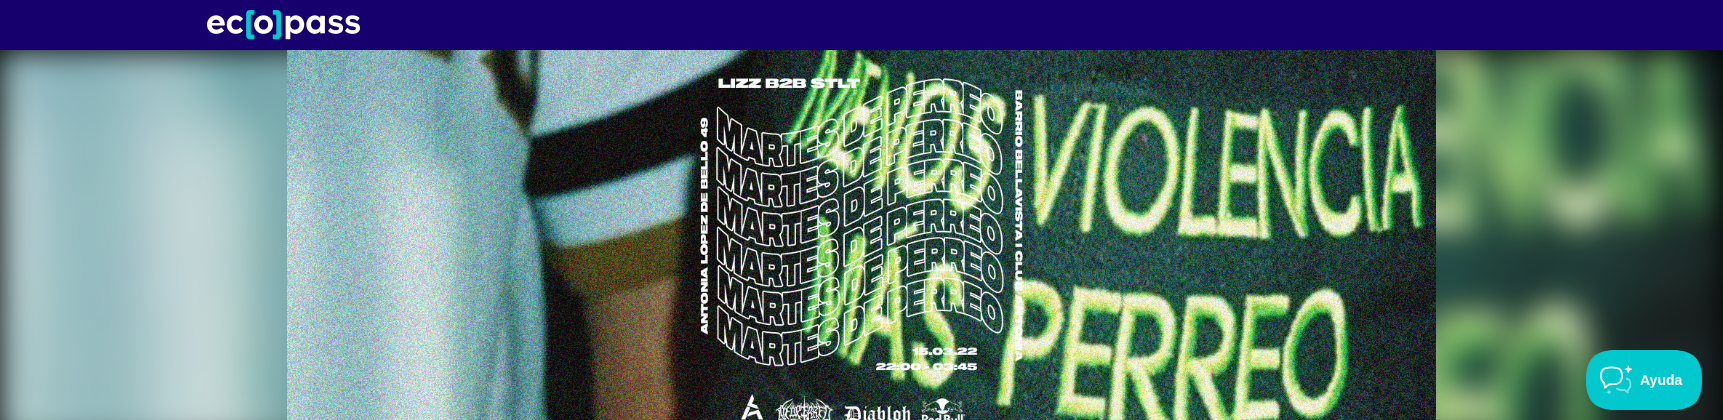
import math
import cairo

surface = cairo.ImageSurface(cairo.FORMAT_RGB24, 1723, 420)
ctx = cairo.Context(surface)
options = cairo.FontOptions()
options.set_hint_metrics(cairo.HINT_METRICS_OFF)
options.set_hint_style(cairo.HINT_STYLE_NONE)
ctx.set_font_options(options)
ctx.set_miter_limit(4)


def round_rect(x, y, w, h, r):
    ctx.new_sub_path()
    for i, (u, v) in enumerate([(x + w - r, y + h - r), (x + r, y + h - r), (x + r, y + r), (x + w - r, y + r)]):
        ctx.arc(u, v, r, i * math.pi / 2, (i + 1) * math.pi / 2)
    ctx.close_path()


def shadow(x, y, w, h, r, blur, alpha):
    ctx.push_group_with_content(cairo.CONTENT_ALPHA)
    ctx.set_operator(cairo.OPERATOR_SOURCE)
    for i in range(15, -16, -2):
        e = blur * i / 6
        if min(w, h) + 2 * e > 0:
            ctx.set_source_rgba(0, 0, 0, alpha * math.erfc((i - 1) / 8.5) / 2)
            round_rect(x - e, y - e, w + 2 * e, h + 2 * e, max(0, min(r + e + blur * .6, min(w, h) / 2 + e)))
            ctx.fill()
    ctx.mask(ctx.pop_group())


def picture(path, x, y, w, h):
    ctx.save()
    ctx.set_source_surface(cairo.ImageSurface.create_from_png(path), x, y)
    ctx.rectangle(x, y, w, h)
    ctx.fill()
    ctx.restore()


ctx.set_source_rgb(0, 0, 0)
ctx.paint()
ctx.set_source_rgb(0.086, 0, 0.431)
ctx.rectangle(0, 0, 1723, 50)
ctx.fill()
picture("img1.png", 207, 10, 153, 30)
picture("img2.png", 0, 50, 1723, 370)
picture("img3.png", 287, 50, 1149, 370)
ctx.set_source_rgb(0, 0, 0)
shadow(1586, 354, 117, 60, 30, 3.5, 0.1)
picture("img4.png", 1586, 350, 116, 60)
surface.write_to_png("page.png")
